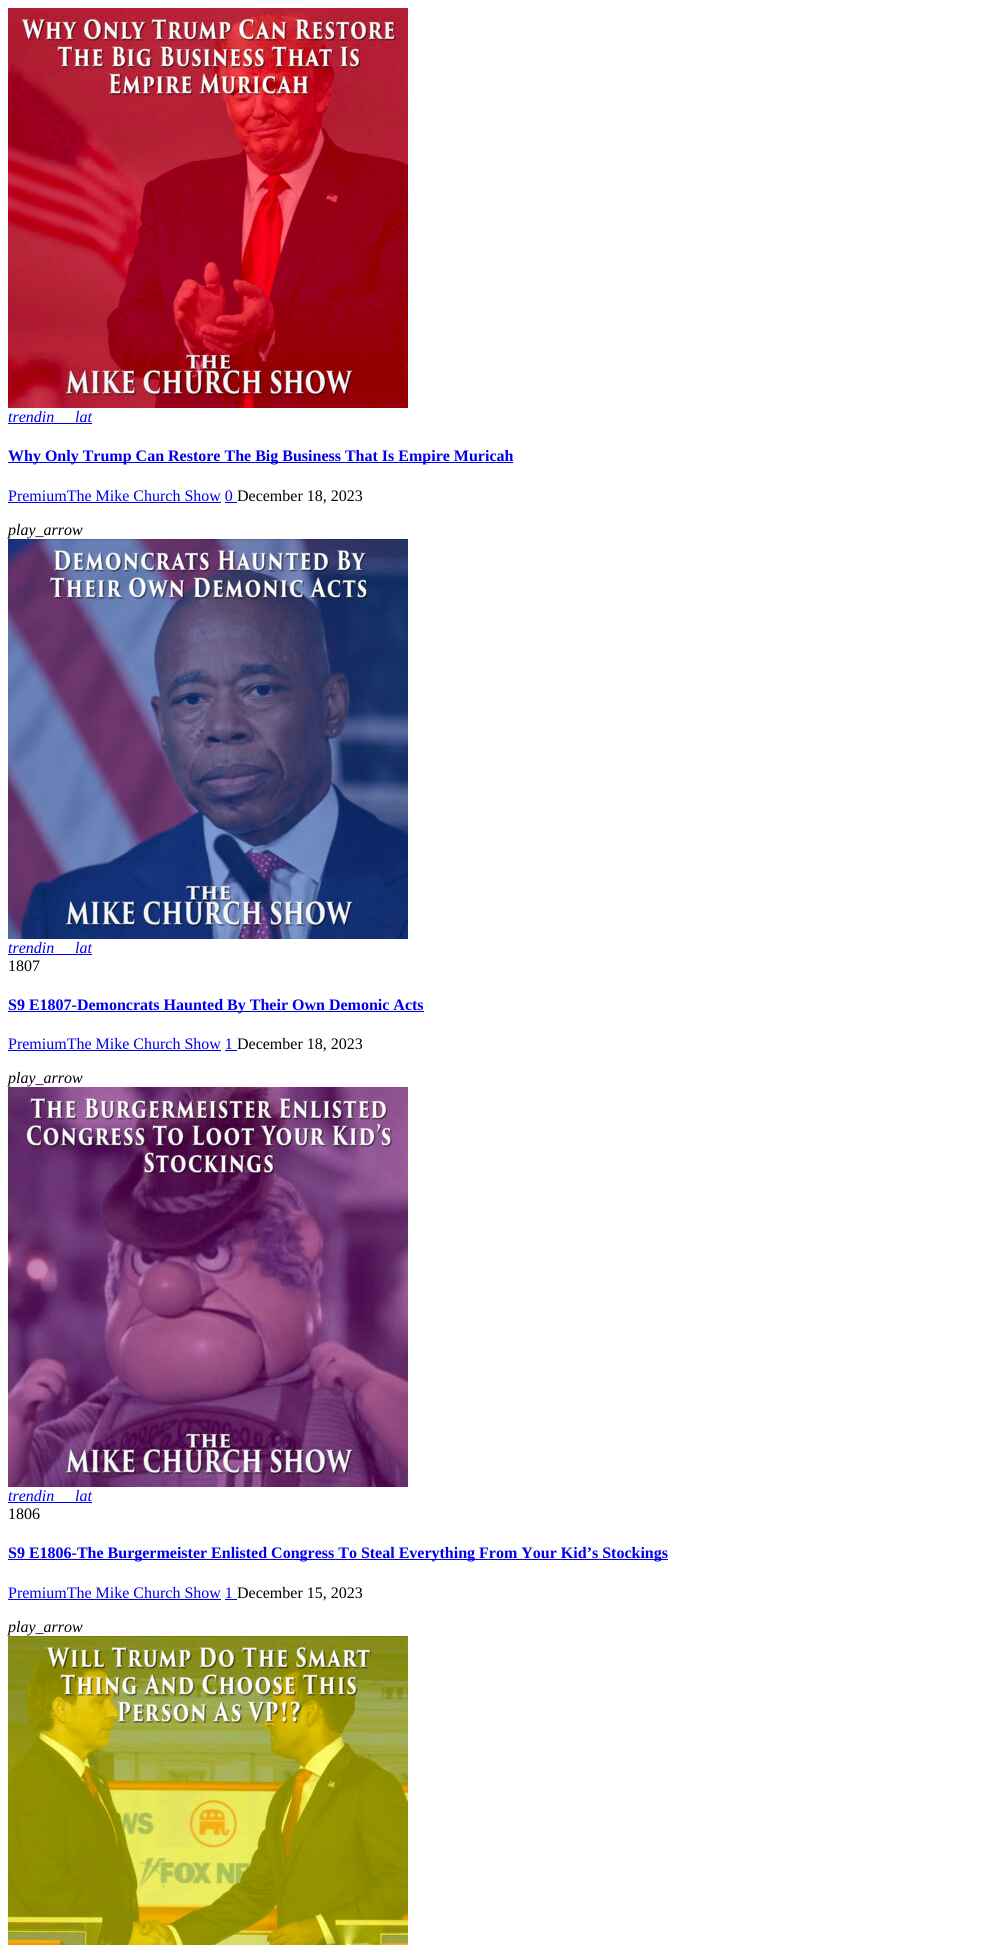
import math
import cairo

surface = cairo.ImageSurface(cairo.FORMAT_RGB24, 1003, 1945)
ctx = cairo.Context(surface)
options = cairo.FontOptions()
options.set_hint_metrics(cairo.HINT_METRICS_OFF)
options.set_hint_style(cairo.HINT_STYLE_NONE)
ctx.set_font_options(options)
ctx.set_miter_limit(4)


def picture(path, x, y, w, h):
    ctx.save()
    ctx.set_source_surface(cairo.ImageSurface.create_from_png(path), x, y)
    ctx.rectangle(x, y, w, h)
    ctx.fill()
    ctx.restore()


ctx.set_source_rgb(1, 1, 1)
ctx.paint()
picture("img1.png", 8, 8, 400, 400)
ctx.select_font_face("Liberation Serif", cairo.FONT_SLANT_ITALIC)
ctx.set_font_size(16)
ctx.set_source_rgb(0, 0, 0.933)
ctx.move_to(8, 422)
ctx.show_text("trendin")
ctx.rectangle(8, 423, 84, 1)
ctx.fill()
ctx.move_to(75, 422)
ctx.show_text("lat")
ctx.rectangle(8, 462, 505, 1)
ctx.fill()
ctx.select_font_face("Liberation Serif", cairo.FONT_SLANT_NORMAL, cairo.FONT_WEIGHT_BOLD)
ctx.move_to(8, 461)
ctx.show_text("Why Only Trump Can Restore The Big Business That Is Empire Muricah")
ctx.select_font_face("Liberation Serif")
ctx.move_to(8, 501)
ctx.show_text("PremiumThe Mike Church Show 0")
ctx.rectangle(8, 502, 213, 1)
ctx.fill()
ctx.set_source_rgb(0, 0, 0)
ctx.move_to(237, 501)
ctx.show_text("December 18, 2023")
ctx.set_source_rgb(0, 0, 0.933)
ctx.rectangle(225, 502, 12, 1)
ctx.fill()
ctx.select_font_face("Liberation Serif", cairo.FONT_SLANT_ITALIC)
ctx.set_source_rgb(0, 0, 0)
ctx.move_to(8, 535)
ctx.show_text("play_arrow")
picture("img2.png", 8, 539, 400, 400)
ctx.set_source_rgb(0, 0, 0.933)
ctx.move_to(8, 953)
ctx.show_text("trendin")
ctx.rectangle(8, 954, 84, 1)
ctx.fill()
ctx.move_to(75, 953)
ctx.show_text("lat")
ctx.select_font_face("Liberation Serif")
ctx.set_source_rgb(0, 0, 0)
ctx.move_to(8, 971)
ctx.show_text("1807")
ctx.set_source_rgb(0, 0, 0.933)
ctx.rectangle(8, 1011, 416, 1)
ctx.fill()
ctx.select_font_face("Liberation Serif", cairo.FONT_SLANT_NORMAL, cairo.FONT_WEIGHT_BOLD)
ctx.move_to(8, 1010)
ctx.show_text("S9 E1807-Demoncrats Haunted By Their Own Demonic Acts")
ctx.select_font_face("Liberation Serif")
ctx.move_to(8, 1049)
ctx.show_text("PremiumThe Mike Church Show 1")
ctx.rectangle(8, 1050, 213, 1)
ctx.fill()
ctx.set_source_rgb(0, 0, 0)
ctx.move_to(237, 1049)
ctx.show_text("December 18, 2023")
ctx.set_source_rgb(0, 0, 0.933)
ctx.rectangle(225, 1050, 12, 1)
ctx.fill()
ctx.select_font_face("Liberation Serif", cairo.FONT_SLANT_ITALIC)
ctx.set_source_rgb(0, 0, 0)
ctx.move_to(8, 1083)
ctx.show_text("play_arrow")
picture("img3.png", 8, 1087, 400, 400)
ctx.set_source_rgb(0, 0, 0.933)
ctx.move_to(8, 1501)
ctx.show_text("trendin")
ctx.rectangle(8, 1502, 84, 1)
ctx.fill()
ctx.move_to(75, 1501)
ctx.show_text("lat")
ctx.select_font_face("Liberation Serif")
ctx.set_source_rgb(0, 0, 0)
ctx.move_to(8, 1519)
ctx.show_text("1806")
ctx.set_source_rgb(0, 0, 0.933)
ctx.rectangle(8, 1559, 660, 1)
ctx.fill()
ctx.select_font_face("Liberation Serif", cairo.FONT_SLANT_NORMAL, cairo.FONT_WEIGHT_BOLD)
ctx.move_to(8, 1558)
ctx.show_text("S9 E1806-The Burgermeister Enlisted Congress To Steal Everything From Your Kid’s Stockings")
ctx.select_font_face("Liberation Serif")
ctx.move_to(8, 1598)
ctx.show_text("PremiumThe Mike Church Show 1")
ctx.rectangle(8, 1599, 213, 1)
ctx.fill()
ctx.set_source_rgb(0, 0, 0)
ctx.move_to(237, 1598)
ctx.show_text("December 15, 2023")
ctx.set_source_rgb(0, 0, 0.933)
ctx.rectangle(225, 1599, 12, 1)
ctx.fill()
ctx.select_font_face("Liberation Serif", cairo.FONT_SLANT_ITALIC)
ctx.set_source_rgb(0, 0, 0)
ctx.move_to(8, 1632)
ctx.show_text("play_arrow")
picture("img4.png", 8, 1636, 400, 309)
surface.write_to_png("page.png")
